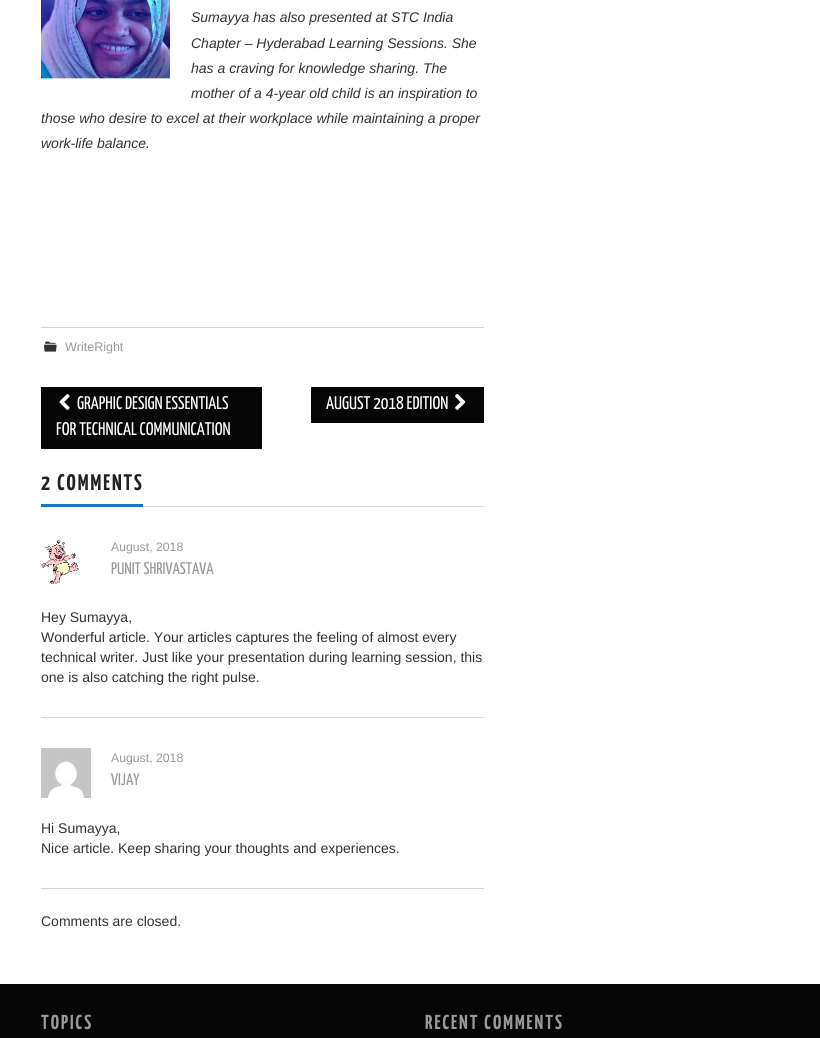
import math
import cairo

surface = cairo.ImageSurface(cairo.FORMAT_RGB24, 820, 1038)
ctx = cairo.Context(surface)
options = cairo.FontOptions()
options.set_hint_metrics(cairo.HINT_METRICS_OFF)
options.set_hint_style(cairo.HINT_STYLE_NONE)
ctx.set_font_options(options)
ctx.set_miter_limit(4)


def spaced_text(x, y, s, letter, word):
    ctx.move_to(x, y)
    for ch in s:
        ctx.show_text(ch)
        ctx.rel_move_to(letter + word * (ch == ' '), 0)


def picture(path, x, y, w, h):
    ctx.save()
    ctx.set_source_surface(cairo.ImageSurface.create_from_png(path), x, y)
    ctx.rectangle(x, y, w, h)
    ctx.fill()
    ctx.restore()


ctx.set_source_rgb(1, 1, 1)
ctx.paint()
picture("img1.png", 41, 0, 129, 79)
ctx.select_font_face("Liberation Sans", cairo.FONT_SLANT_ITALIC)
ctx.set_font_size(14)
ctx.set_source_rgb(0.2, 0.2, 0.2)
ctx.move_to(191, 22)
ctx.show_text("Sumayya has also presented at STC India")
ctx.move_to(191, 48)
ctx.show_text("Chapter – Hyderabad Learning Sessions. She")
ctx.move_to(191, 73)
ctx.show_text("has a craving for knowledge sharing. The")
ctx.move_to(191, 98)
ctx.show_text("mother of a 4-year old child is an inspiration to")
ctx.move_to(41, 123)
ctx.show_text("those who desire to excel at their workplace while maintaining a proper")
ctx.move_to(41, 148)
ctx.show_text("work-life balance.")
ctx.set_source_rgb(0.839, 0.839, 0.839)
ctx.rectangle(41, 327, 443, 1)
ctx.fill()
picture("img2.png", 44, 341, 13, 11)
ctx.select_font_face("Liberation Sans")
ctx.set_font_size(12.5)
ctx.set_source_rgb(0.6, 0.6, 0.6)
ctx.move_to(65, 351)
ctx.show_text("WriteRight")
ctx.set_source_rgb(0.024, 0.024, 0.031)
ctx.rectangle(41, 387, 221, 62)
ctx.fill()
picture("img3.png", 59, 394, 11, 16)
ctx.select_font_face("Yanone Kaffeesatz")
ctx.set_font_size(18.25)
ctx.set_source_rgb(1, 1, 1)
ctx.move_to(77, 409)
ctx.show_text("GRAPHIC DESIGN ESSENTIALS")
ctx.move_to(56, 435)
ctx.show_text("FOR TECHNICAL COMMUNICATION")
ctx.set_source_rgb(0.024, 0.024, 0.031)
ctx.rectangle(311, 387, 173, 36)
ctx.fill()
ctx.set_source_rgb(1, 1, 1)
ctx.move_to(326, 409)
ctx.show_text("AUGUST 2018 EDITION")
picture("img4.png", 455, 394, 11, 16)
ctx.set_source_rgb(0.839, 0.839, 0.839)
ctx.rectangle(143, 506, 341, 1)
ctx.fill()
ctx.set_source_rgb(0.118, 0.451, 0.745)
ctx.rectangle(41, 504, 102, 3)
ctx.fill()
ctx.select_font_face("Yanone Kaffeesatz", cairo.FONT_SLANT_NORMAL, cairo.FONT_WEIGHT_BOLD)
ctx.set_font_size(22.5)
ctx.set_source_rgb(0.133, 0.133, 0.133)
spaced_text(41, 490, "2 COMMENTS", 2, 0)
ctx.set_source_rgb(0.839, 0.839, 0.839)
ctx.rectangle(41, 717, 443, 1)
ctx.fill()
picture("img5.png", 41, 540, 38, 44)
ctx.select_font_face("Liberation Sans")
ctx.set_font_size(12.25)
ctx.set_source_rgb(0.6, 0.6, 0.6)
ctx.move_to(111, 551)
ctx.show_text("August, 2018")
ctx.select_font_face("Yanone Kaffeesatz")
ctx.set_font_size(16.75)
ctx.move_to(111, 574)
ctx.show_text("PUNIT SHRIVASTAVA")
ctx.select_font_face("Liberation Sans")
ctx.set_font_size(14)
ctx.set_source_rgb(0.2, 0.2, 0.2)
ctx.move_to(41, 622)
ctx.show_text("Hey Sumayya,")
ctx.move_to(41, 642)
ctx.show_text("Wonderful article. Your articles captures the feeling of almost every")
ctx.move_to(41, 662)
ctx.show_text("technical writer. Just like your presentation during learning session, this")
ctx.move_to(41, 682)
ctx.show_text("one is also catching the right pulse.")
ctx.set_source_rgb(0.839, 0.839, 0.839)
ctx.rectangle(41, 888, 443, 1)
ctx.fill()
picture("img6.png", 41, 748, 50, 50)
ctx.set_font_size(12.25)
ctx.set_source_rgb(0.6, 0.6, 0.6)
ctx.move_to(111, 762)
ctx.show_text("August, 2018")
ctx.select_font_face("Yanone Kaffeesatz")
ctx.set_font_size(16.75)
ctx.move_to(111, 785)
ctx.show_text("VIJAY")
ctx.select_font_face("Liberation Sans")
ctx.set_font_size(14)
ctx.set_source_rgb(0.2, 0.2, 0.2)
ctx.move_to(41, 833)
ctx.show_text("Hi Sumayya,")
ctx.move_to(41, 853)
ctx.show_text("Nice article. Keep sharing your thoughts and experiences.")
ctx.move_to(41, 926)
ctx.show_text("Comments are closed.")
ctx.set_source_rgb(0.024, 0.024, 0.031)
ctx.rectangle(0, 984, 820, 54)
ctx.fill()
ctx.select_font_face("Yanone Kaffeesatz", cairo.FONT_SLANT_NORMAL, cairo.FONT_WEIGHT_BOLD)
ctx.set_font_size(20.25)
ctx.set_source_rgb(0.6, 0.6, 0.6)
spaced_text(41, 1029, "TOPICS", 2, 0)
spaced_text(425, 1029, "RECENT COMMENTS", 2, 0)
surface.write_to_png("page.png")
